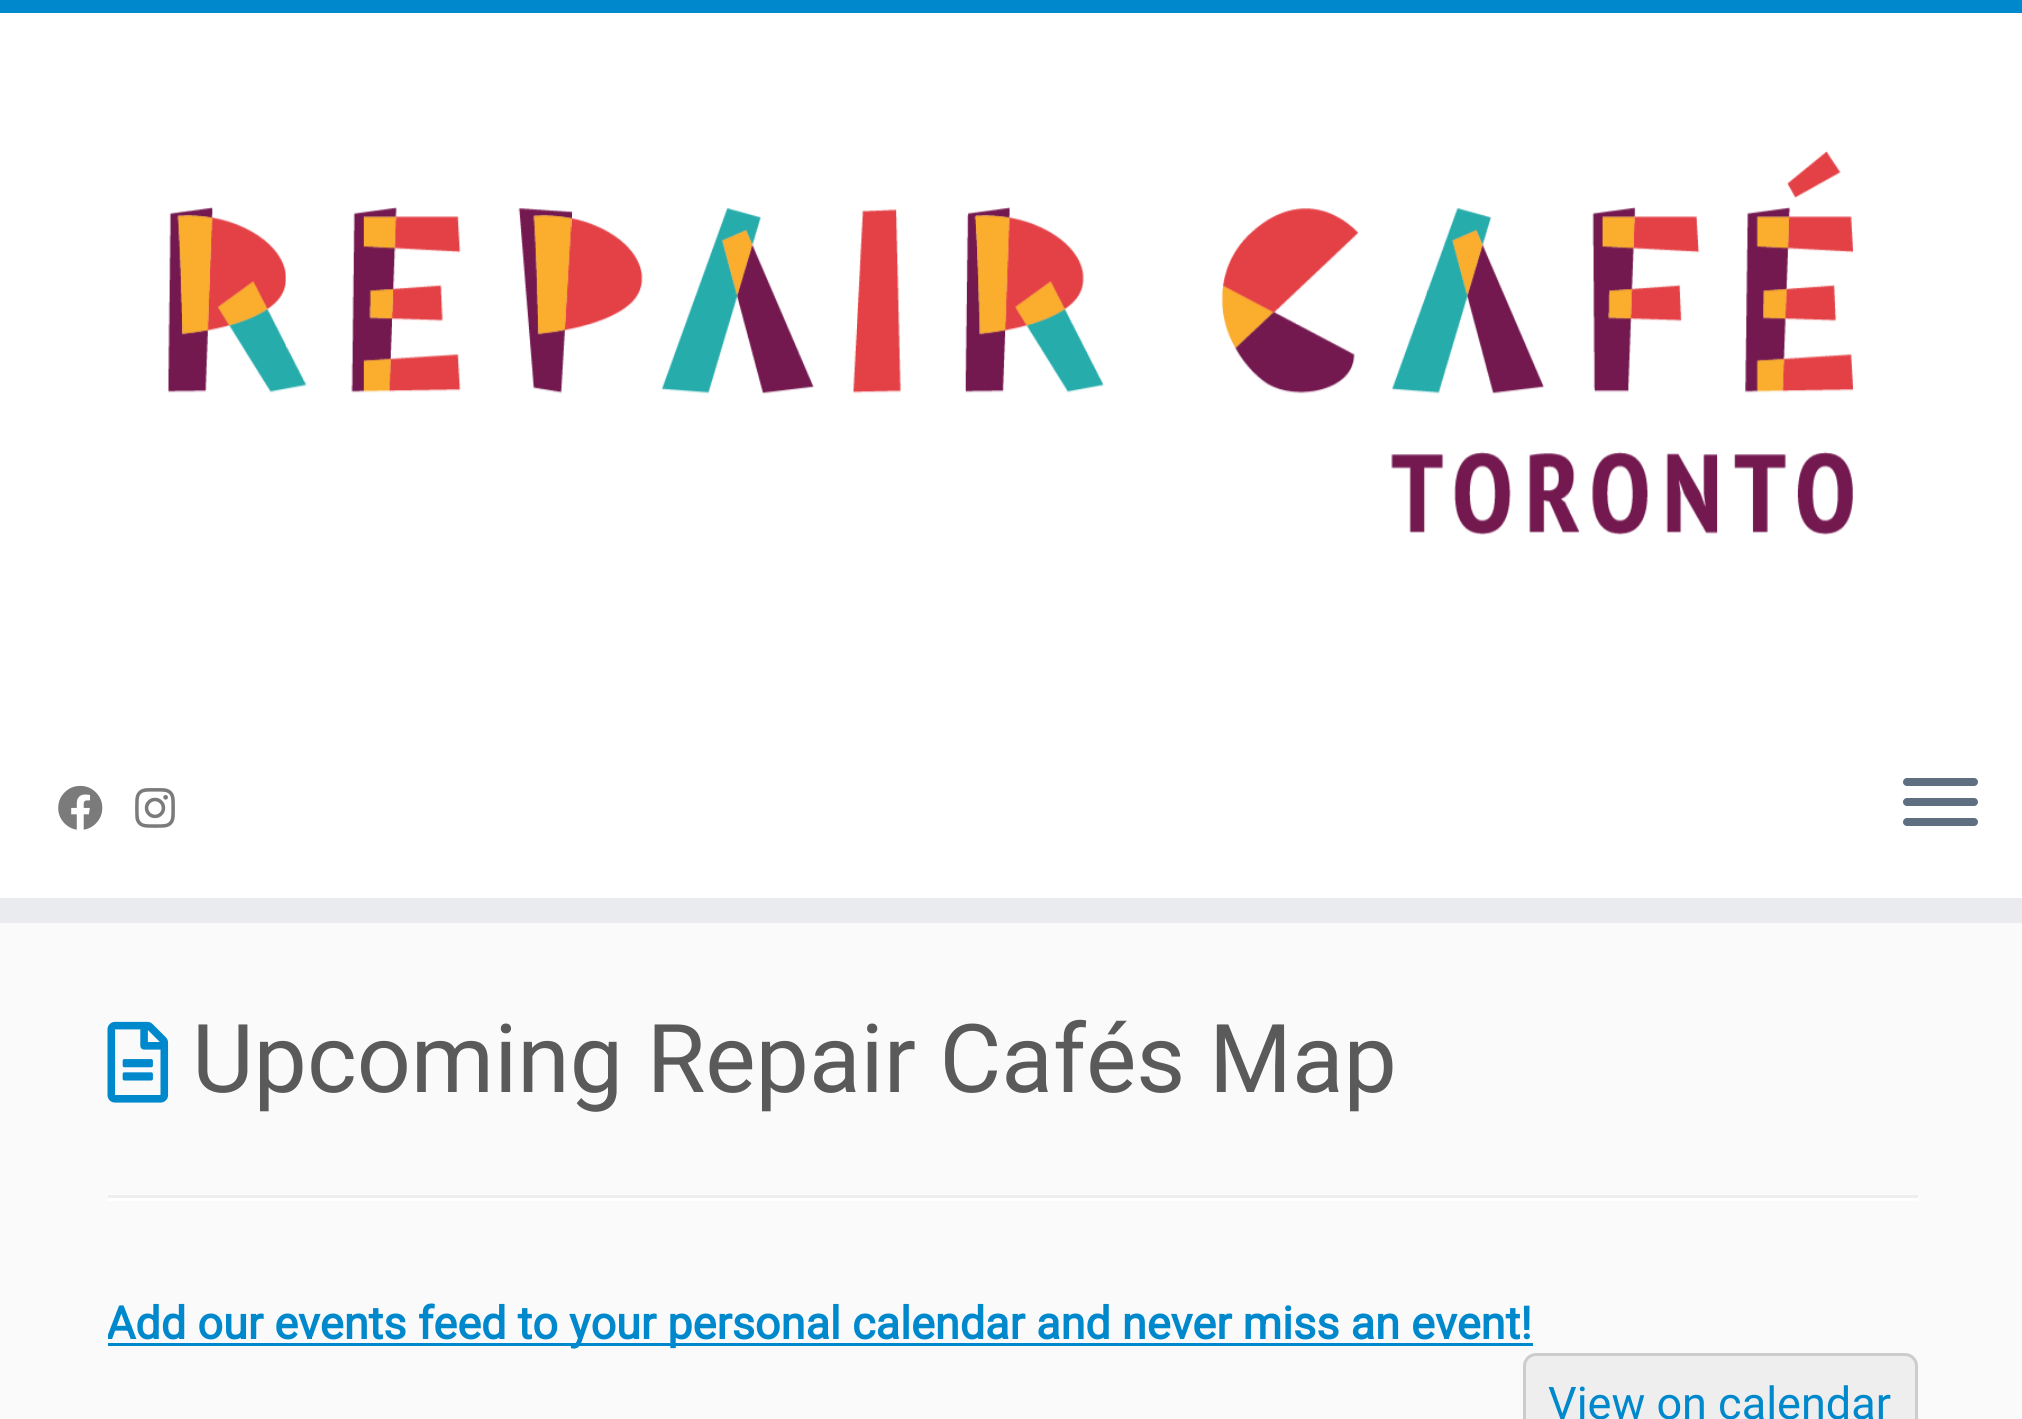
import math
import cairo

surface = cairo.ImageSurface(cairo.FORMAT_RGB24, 2022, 1419)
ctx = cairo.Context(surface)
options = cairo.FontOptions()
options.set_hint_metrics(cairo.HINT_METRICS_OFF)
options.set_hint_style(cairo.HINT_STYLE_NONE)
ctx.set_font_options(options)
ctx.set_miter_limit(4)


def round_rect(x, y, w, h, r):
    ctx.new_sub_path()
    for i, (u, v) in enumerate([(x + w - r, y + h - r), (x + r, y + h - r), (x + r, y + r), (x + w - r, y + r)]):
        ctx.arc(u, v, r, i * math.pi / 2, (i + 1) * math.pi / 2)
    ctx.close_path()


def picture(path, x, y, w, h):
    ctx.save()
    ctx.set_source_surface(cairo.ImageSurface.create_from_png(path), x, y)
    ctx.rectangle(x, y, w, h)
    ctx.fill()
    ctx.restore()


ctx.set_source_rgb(0.98, 0.98, 0.98)
ctx.paint()
ctx.set_source_rgb(1, 1, 1)
ctx.rectangle(0, 13, 2022, 885)
ctx.fill()
ctx.set_source_rgb(0, 0.533, 0.8)
ctx.rectangle(0, 0, 2022, 13)
ctx.fill()
ctx.set_source_rgb(0.914, 0.918, 0.933)
ctx.rectangle(0, 898, 2022, 25)
ctx.fill()
picture("img1.png", 168, 151, 1685, 384)
picture("img2.png", 58, 785, 45, 45)
picture("img3.png", 135, 788, 40, 40)
ctx.set_source_rgb(0.373, 0.435, 0.506)
round_rect(1903, 778, 75, 8, 4)
ctx.fill()
round_rect(1903, 798, 75, 8, 4)
ctx.fill()
round_rect(1903, 818, 75, 8, 4)
ctx.fill()
picture("img4.png", 107, 1021, 62, 82)
ctx.select_font_face("Roboto")
ctx.set_font_size(95)
ctx.set_source_rgb(0.353, 0.353, 0.353)
ctx.move_to(192, 1092)
ctx.show_text("Upcoming Repair Cafés Map")
ctx.set_source_rgb(0.933, 0.933, 0.933)
ctx.rectangle(108, 1195, 1810, 3)
ctx.fill()
ctx.set_source_rgb(1, 1, 1)
ctx.rectangle(108, 1198, 1810, 3)
ctx.fill()
ctx.set_source_rgb(0, 0.533, 0.8)
ctx.rectangle(108, 1343, 1425, 3)
ctx.fill()
ctx.save()
ctx.rectangle(108, 1275, 1810, 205)
ctx.clip()
ctx.select_font_face("Roboto", cairo.FONT_SLANT_NORMAL, cairo.FONT_WEIGHT_BOLD)
ctx.set_font_size(45)
ctx.move_to(106, 1339)
ctx.show_text("Add our events feed to your personal calendar and never miss an event!")
ctx.restore()
ctx.set_source_rgb(0.933, 0.933, 0.933)
round_rect(1524.5, 1354.5, 392, 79, 11.5)
ctx.fill_preserve()
ctx.set_source_rgb(0.8, 0.8, 0.8)
ctx.set_line_width(3)
ctx.stroke()
ctx.set_font_size(45)
ctx.set_source_rgb(0, 0.533, 0.8)
ctx.move_to(1548, 1419)
ctx.show_text("View on calendar")
surface.write_to_png("page.png")
